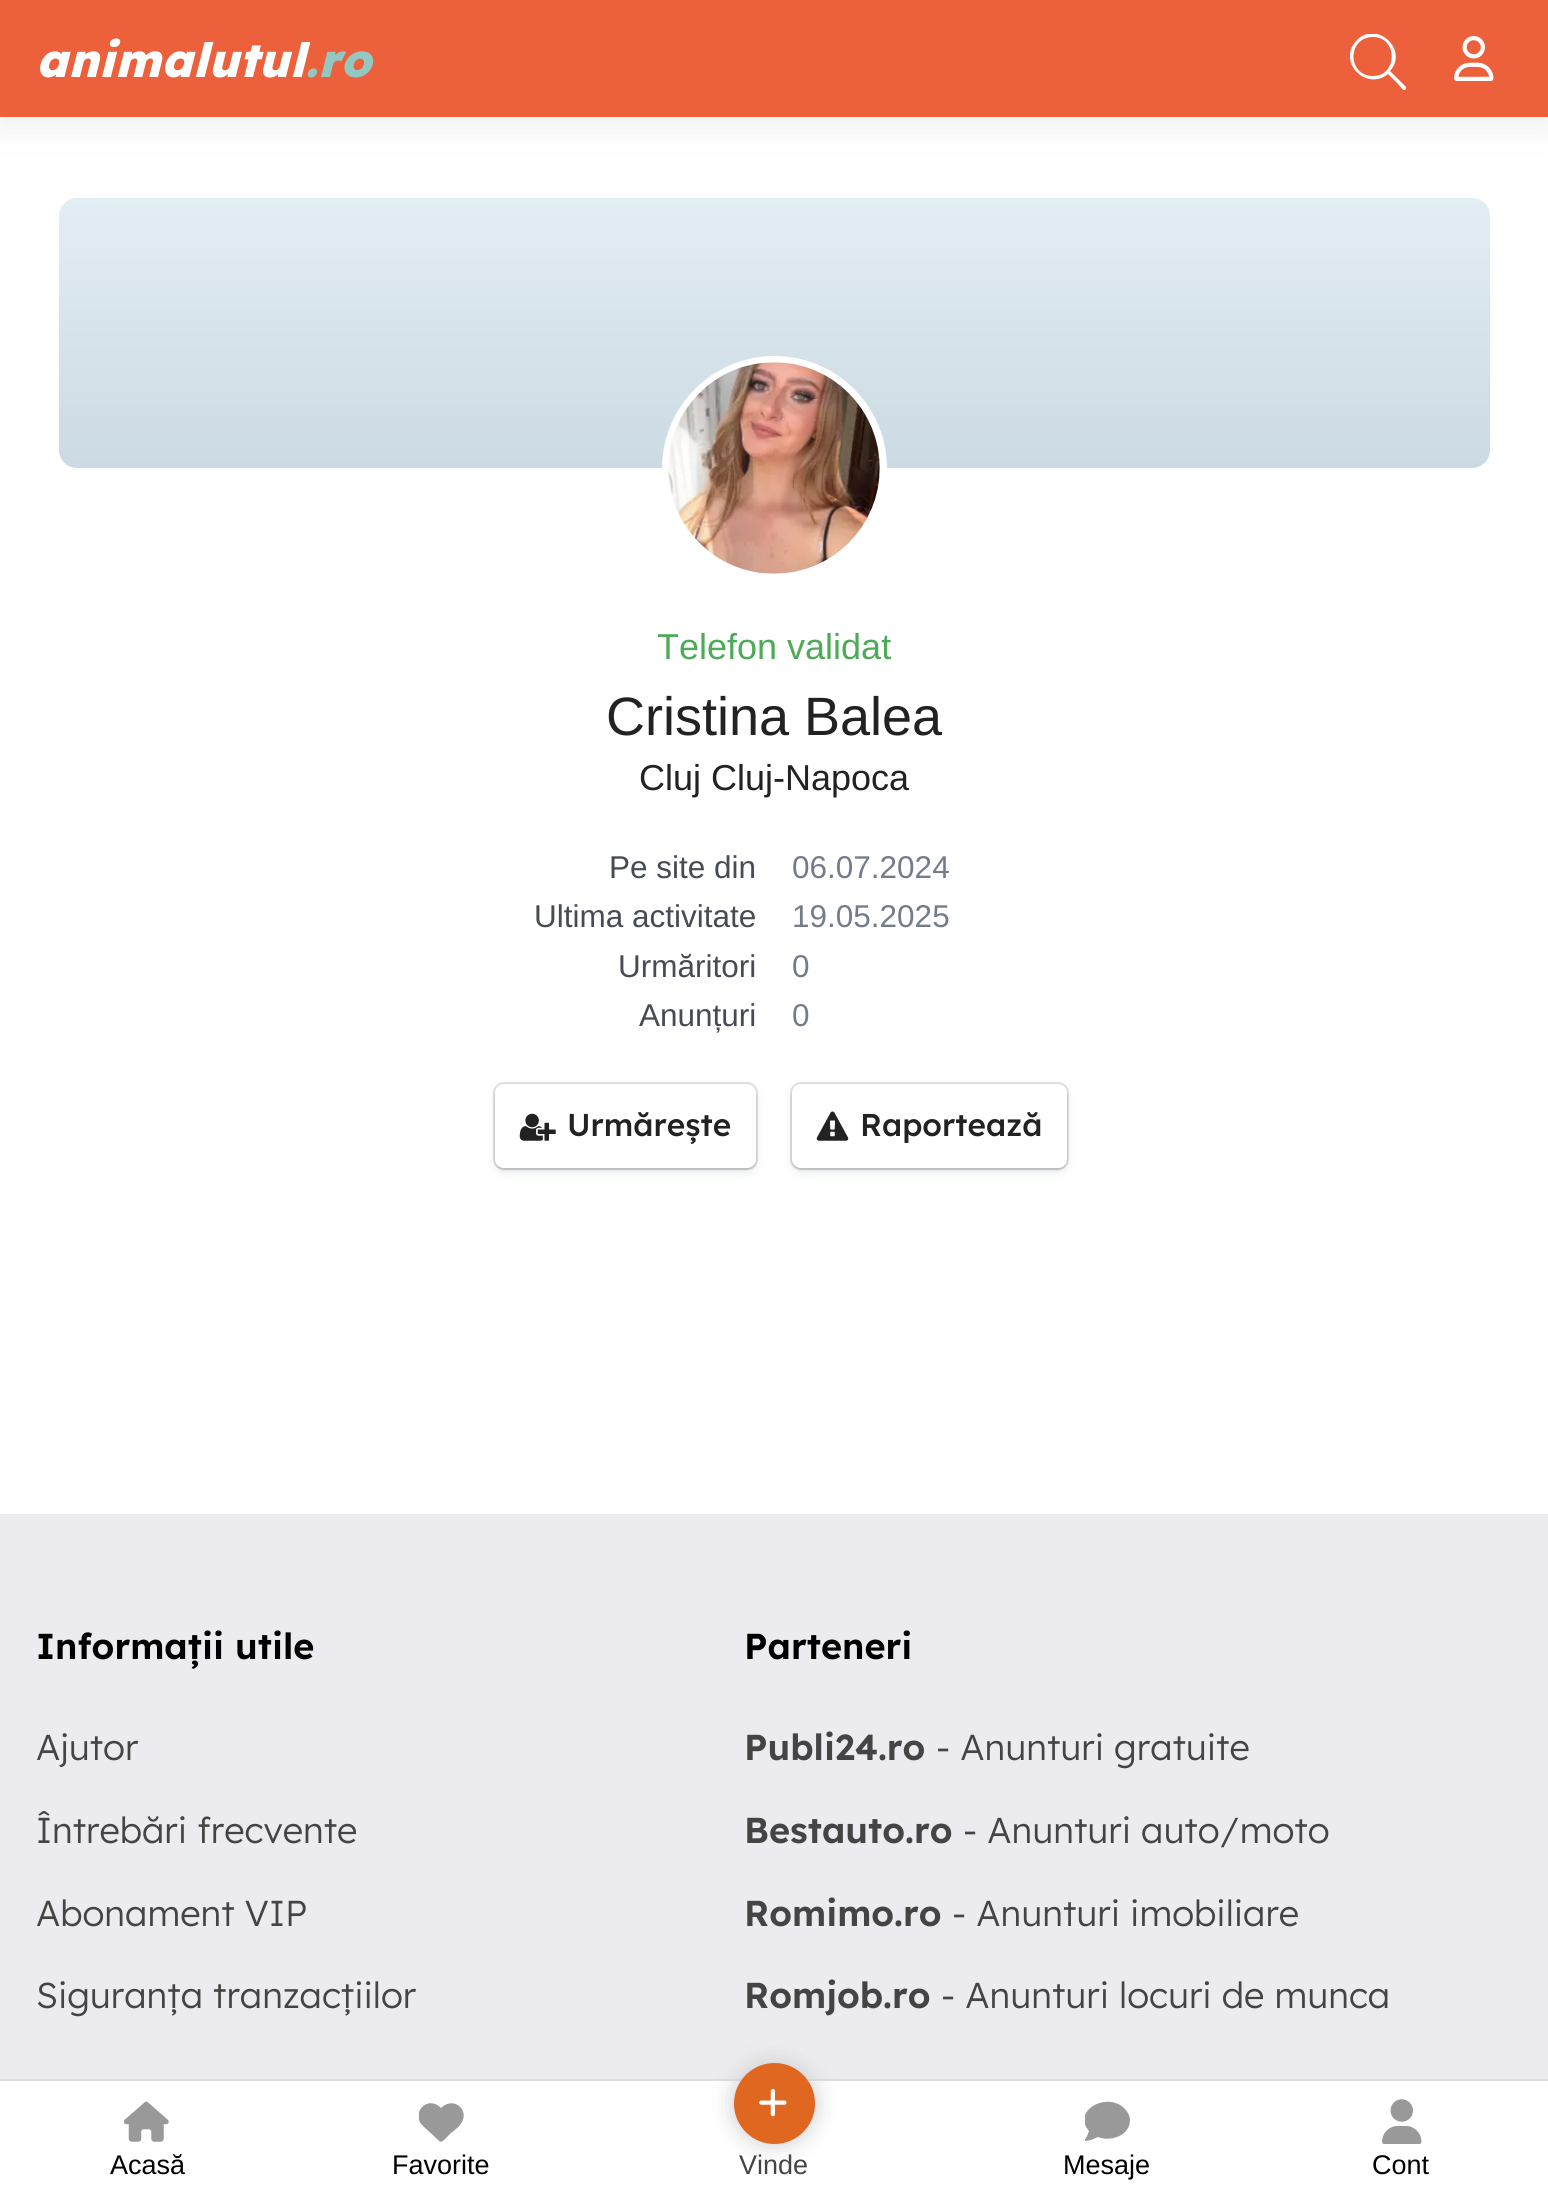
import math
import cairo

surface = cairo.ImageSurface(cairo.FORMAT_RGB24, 1548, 2202)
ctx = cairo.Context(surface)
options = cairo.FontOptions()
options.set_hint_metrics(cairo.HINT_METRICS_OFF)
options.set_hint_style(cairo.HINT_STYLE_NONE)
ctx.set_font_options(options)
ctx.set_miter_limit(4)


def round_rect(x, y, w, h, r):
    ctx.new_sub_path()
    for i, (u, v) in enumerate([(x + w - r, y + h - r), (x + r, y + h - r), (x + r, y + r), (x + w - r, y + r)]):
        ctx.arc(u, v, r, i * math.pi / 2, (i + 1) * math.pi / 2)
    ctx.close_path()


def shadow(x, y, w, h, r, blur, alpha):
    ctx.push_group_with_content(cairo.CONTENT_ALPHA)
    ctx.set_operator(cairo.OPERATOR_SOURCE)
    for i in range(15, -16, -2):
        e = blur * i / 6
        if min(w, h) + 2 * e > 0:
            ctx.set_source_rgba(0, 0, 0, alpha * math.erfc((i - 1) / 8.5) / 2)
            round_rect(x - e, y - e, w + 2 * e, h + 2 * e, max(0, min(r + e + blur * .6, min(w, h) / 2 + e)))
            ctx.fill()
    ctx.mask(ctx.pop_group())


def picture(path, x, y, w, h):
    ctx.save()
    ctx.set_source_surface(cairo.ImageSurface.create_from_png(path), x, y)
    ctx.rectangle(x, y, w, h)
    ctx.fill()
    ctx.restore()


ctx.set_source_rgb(1, 1, 1)
ctx.paint()
ctx.set_source_rgb(0.667, 0.667, 0.667)
shadow(0, 9, 1548, 117, 0, 17, 0.19)
ctx.set_source_rgb(0.922, 0.38, 0.235)
ctx.rectangle(0, 0, 1548, 117)
ctx.fill()
ctx.select_font_face("Lexend ExtraBold", cairo.FONT_SLANT_ITALIC)
ctx.set_font_size(47.25)
ctx.set_source_rgb(1, 1, 1)
ctx.move_to(36, 77)
ctx.show_text("animalutul")
ctx.set_source_rgb(0.576, 0.784, 0.761)
ctx.move_to(305, 77)
ctx.show_text(".ro")
ctx.save()
ctx.rectangle(1350, 34, 56, 56)
ctx.clip()
ctx.set_source_rgb(1, 1, 1)
ctx.new_path()
ctx.move_to(1406, 87)
ctx.line_to(1390, 71)
ctx.curve_to(1409, 50, 1377, 20, 1357, 40)
ctx.curve_to(1336, 61, 1366, 92, 1388, 74)
ctx.line_to(1398, 84)
ctx.curve_to(1399, 85, 1403, 91, 1405, 90)
ctx.curve_to(1406, 89, 1407, 88, 1406, 87)
ctx.close_path()
ctx.move_to(1373, 76)
ctx.curve_to(1347, 76, 1347, 37, 1373, 37)
ctx.curve_to(1398, 37, 1398, 76, 1373, 76)
ctx.close_path()
ctx.fill()
ctx.restore()
picture("img1.png", 1454, 36, 40, 45)
ctx.set_source_rgb(0.867, 0.867, 0.867)
ctx.rectangle(0, 2079, 1548, 2)
ctx.fill()
picture("img2.png", 124, 2101, 45, 41)
ctx.select_font_face("Liberation Sans")
ctx.set_font_size(27)
ctx.set_source_rgb(0, 0, 0)
ctx.move_to(110, 2174)
ctx.show_text("Acasă")
ctx.save()
ctx.rectangle(419, 2099, 45, 45)
ctx.clip()
ctx.set_source_rgb(0.6, 0.6, 0.6)
ctx.new_path()
ctx.move_to(423, 2126)
ctx.line_to(436, 2138)
ctx.curve_to(441, 2143, 441, 2143, 446, 2138)
ctx.line_to(451, 2133)
ctx.curve_to(455, 2130, 459, 2127, 462, 2122)
ctx.curve_to(469, 2109, 453, 2096, 441, 2108)
ctx.curve_to(427, 2094, 410, 2114, 423, 2126)
ctx.close_path()
ctx.fill()
ctx.restore()
ctx.move_to(392, 2174)
ctx.show_text("Favorite")
ctx.set_source_rgb(0.925, 0.925, 0.941)
ctx.rectangle(0, 1514, 1548, 565)
ctx.fill()
ctx.set_source_rgb(0.8, 0.8, 0.8)
shadow(734, 2063, 81, 81, 40.5, 11, 1)
ctx.set_source_rgb(0.878, 0.404, 0.125)
ctx.arc(774.5, 2103.5, 40.5, 0, 2 * math.pi)
ctx.fill()
picture("img3.png", 759, 2088, 28, 29)
ctx.set_source_rgb(0.267, 0.267, 0.267)
ctx.move_to(739, 2174)
ctx.show_text("Vinde")
ctx.save()
ctx.rectangle(1085, 2099, 45, 45)
ctx.clip()
ctx.set_source_rgb(0.6, 0.6, 0.6)
ctx.new_path()
ctx.move_to(1130, 2120)
ctx.curve_to(1130, 2136, 1110, 2142, 1098, 2137)
ctx.line_to(1091, 2140)
ctx.line_to(1085, 2141)
ctx.curve_to(1083, 2141, 1087, 2137, 1087, 2136)
ctx.line_to(1089, 2131)
ctx.curve_to(1072, 2112, 1104, 2092, 1123, 2107)
ctx.curve_to(1127, 2111, 1130, 2115, 1130, 2120)
ctx.close_path()
ctx.fill()
ctx.restore()
ctx.set_source_rgb(0, 0, 0)
ctx.move_to(1063, 2174)
ctx.show_text("Mesaje")
picture("img4.png", 1382, 2099, 40, 45)
ctx.move_to(1372, 2174)
ctx.show_text("Cont")
gradient = cairo.LinearGradient(774, 198, 774, 468)
gradient.add_color_stop_rgba(0, 0.89, 0.929, 0.957, 1)
gradient.add_color_stop_rgba(1, 0.8, 0.855, 0.89, 1)
ctx.set_source(gradient)
round_rect(59, 198, 1431, 270, 18)
ctx.fill()
ctx.set_source_rgb(1, 1, 1)
ctx.arc(774.5, 468.5, 109, 0, 2 * math.pi)
ctx.fill_preserve()
ctx.set_line_width(7)
ctx.stroke()
picture("img5.png", 668, 362, 212, 212)
ctx.set_font_size(36)
ctx.set_source_rgb(0.302, 0.667, 0.341)
ctx.move_to(657, 659)
ctx.show_text("Telefon validat")
ctx.set_font_size(54)
ctx.set_source_rgb(0.133, 0.133, 0.133)
ctx.move_to(606, 735)
ctx.show_text("Cristina Balea")
ctx.set_font_size(36)
ctx.move_to(639, 790)
ctx.show_text("Cluj Cluj-Napoca")
ctx.set_font_size(31.5)
ctx.set_source_rgb(0.275, 0.294, 0.329)
ctx.move_to(609, 878)
ctx.show_text("Pe site din")
ctx.set_source_rgb(0.455, 0.486, 0.549)
ctx.move_to(792, 878)
ctx.show_text("06.07.2024")
ctx.set_source_rgb(0.275, 0.294, 0.329)
ctx.move_to(534, 927)
ctx.show_text("Ultima activitate")
ctx.set_source_rgb(0.455, 0.486, 0.549)
ctx.move_to(792, 927)
ctx.show_text("19.05.2025")
ctx.set_source_rgb(0.275, 0.294, 0.329)
ctx.move_to(618, 977)
ctx.show_text("Urmăritori")
ctx.set_source_rgb(0.455, 0.486, 0.549)
ctx.move_to(792, 977)
ctx.show_text("0")
ctx.set_source_rgb(0.275, 0.294, 0.329)
ctx.move_to(639, 1026)
ctx.show_text("Anunțuri")
ctx.set_source_rgb(0.455, 0.486, 0.549)
ctx.move_to(792, 1026)
ctx.show_text("0")
ctx.set_source_rgb(0.235, 0.259, 0.341)
shadow(495, 1089, 261, 83, 9, 5.5, 0.12)
round_rect(494, 1083, 263, 86, 10)
ctx.set_source_rgba(0.235, 0.259, 0.341, 0.16)
ctx.set_line_width(2)
ctx.stroke()
ctx.set_source_rgb(0, 0, 0)
shadow(495, 1087, 261, 83, 9, 1, 0.12)
ctx.set_source_rgb(1, 1, 1)
round_rect(496, 1086, 259, 81, 8)
ctx.fill_preserve()
ctx.stroke()
picture("img6.png", 519, 1113, 37, 28)
ctx.select_font_face("Lexend Medium")
ctx.set_source_rgb(0.133, 0.133, 0.133)
ctx.move_to(567, 1136)
ctx.show_text("Urmărește")
ctx.set_source_rgb(0.235, 0.259, 0.341)
shadow(792, 1089, 275, 83, 9, 5.5, 0.12)
round_rect(791, 1083, 277, 86, 10)
ctx.set_source_rgba(0.235, 0.259, 0.341, 0.16)
ctx.stroke()
ctx.set_source_rgb(0, 0, 0)
shadow(792, 1087, 275, 83, 9, 1, 0.12)
ctx.set_source_rgb(1, 1, 1)
round_rect(793, 1086, 273, 81, 8)
ctx.fill_preserve()
ctx.stroke()
picture("img7.png", 816, 1111, 33, 30)
ctx.set_source_rgb(0.133, 0.133, 0.133)
ctx.move_to(860, 1136)
ctx.show_text("Raportează")
ctx.select_font_face("Lexend SemiBold")
ctx.set_font_size(36)
ctx.set_source_rgb(0, 0, 0)
ctx.move_to(36, 1659)
ctx.show_text("Informații utile")
ctx.select_font_face("Lexend Light")
ctx.set_source_rgb(0.267, 0.267, 0.267)
ctx.move_to(36, 1760)
ctx.show_text("Ajutor")
ctx.move_to(36, 1843)
ctx.show_text("Întrebări frecvente")
ctx.move_to(36, 1926)
ctx.show_text("Abonament VIP")
ctx.move_to(36, 2008)
ctx.show_text("Siguranța tranzacțiilor")
ctx.select_font_face("Lexend SemiBold")
ctx.set_source_rgb(0, 0, 0)
ctx.move_to(744, 1659)
ctx.show_text("Parteneri")
ctx.set_source_rgb(0.267, 0.267, 0.267)
ctx.move_to(744, 1760)
ctx.show_text("Publi24.ro")
ctx.select_font_face("Lexend Light")
ctx.move_to(936, 1760)
ctx.show_text("- Anunturi gratuite")
ctx.select_font_face("Lexend SemiBold")
ctx.move_to(744, 1843)
ctx.show_text("Bestauto.ro")
ctx.select_font_face("Lexend Light")
ctx.move_to(963, 1843)
ctx.show_text("- Anunturi auto/moto")
ctx.select_font_face("Lexend SemiBold")
ctx.move_to(744, 1926)
ctx.show_text("Romimo.ro")
ctx.select_font_face("Lexend Light")
ctx.move_to(952, 1926)
ctx.show_text("- Anunturi imobiliare")
ctx.select_font_face("Lexend SemiBold")
ctx.move_to(744, 2008)
ctx.show_text("Romjob.ro")
ctx.select_font_face("Lexend Light")
ctx.move_to(941, 2008)
ctx.show_text("- Anunturi locuri de munca")
surface.write_to_png("page.png")
